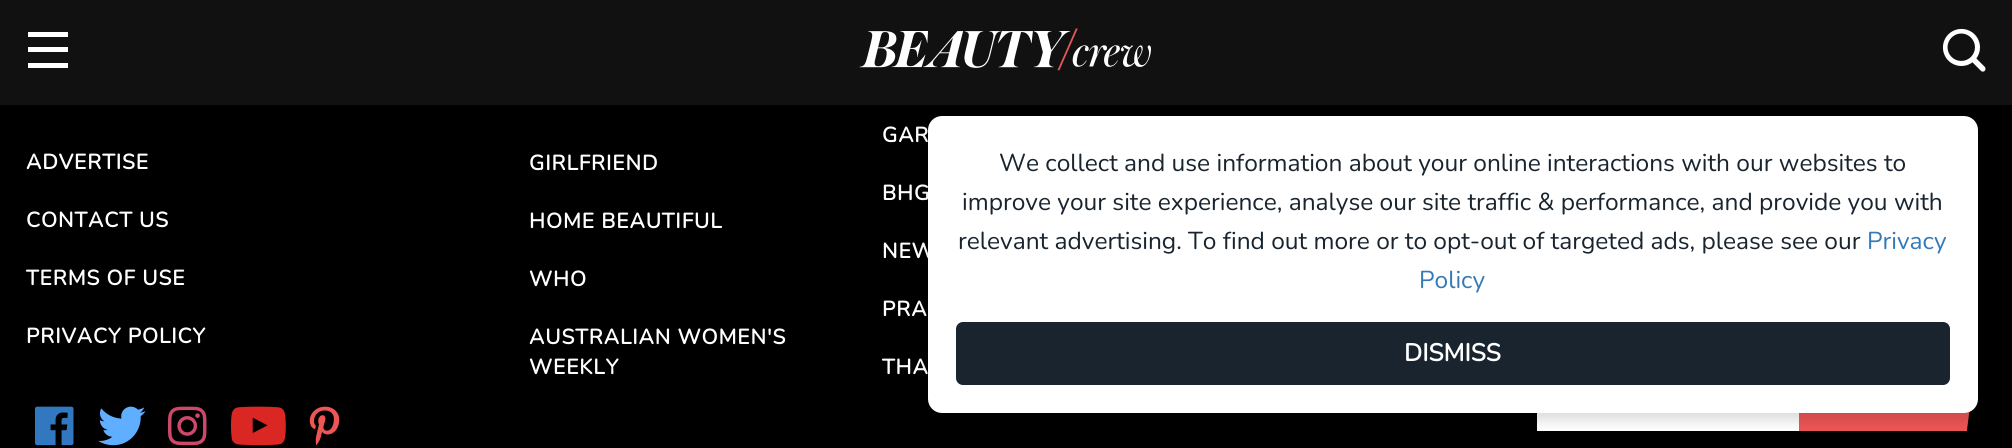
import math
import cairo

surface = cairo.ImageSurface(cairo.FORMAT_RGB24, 2012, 448)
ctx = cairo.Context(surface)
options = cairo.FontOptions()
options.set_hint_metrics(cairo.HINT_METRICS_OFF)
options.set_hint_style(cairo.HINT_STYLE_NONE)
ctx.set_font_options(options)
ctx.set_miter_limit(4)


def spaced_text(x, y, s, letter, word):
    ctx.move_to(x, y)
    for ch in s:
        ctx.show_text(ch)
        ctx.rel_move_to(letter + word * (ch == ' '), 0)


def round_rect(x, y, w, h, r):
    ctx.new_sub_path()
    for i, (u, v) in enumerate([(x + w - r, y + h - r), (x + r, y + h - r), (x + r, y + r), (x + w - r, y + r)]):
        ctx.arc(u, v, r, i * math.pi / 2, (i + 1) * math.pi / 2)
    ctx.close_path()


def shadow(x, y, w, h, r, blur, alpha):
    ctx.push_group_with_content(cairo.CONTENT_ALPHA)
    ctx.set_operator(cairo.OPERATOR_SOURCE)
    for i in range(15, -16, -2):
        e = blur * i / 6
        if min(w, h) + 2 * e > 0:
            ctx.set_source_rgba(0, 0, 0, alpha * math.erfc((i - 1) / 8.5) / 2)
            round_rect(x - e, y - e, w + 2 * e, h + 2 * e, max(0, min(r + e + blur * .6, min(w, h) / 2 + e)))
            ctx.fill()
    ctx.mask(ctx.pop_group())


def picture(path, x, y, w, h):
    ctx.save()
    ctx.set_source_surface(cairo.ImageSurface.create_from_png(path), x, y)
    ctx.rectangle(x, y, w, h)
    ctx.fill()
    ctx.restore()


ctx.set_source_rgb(0, 0, 0)
ctx.paint()
ctx.set_source_rgb(0.067, 0.067, 0.067)
ctx.rectangle(0, 0, 2012, 105)
ctx.fill()
ctx.set_source_rgb(1, 1, 1)
ctx.rectangle(28, 32, 40, 5)
ctx.fill()
ctx.rectangle(28, 47, 40, 5)
ctx.fill()
ctx.rectangle(28, 63, 40, 5)
ctx.fill()
picture("img1.png", 859, 28, 292, 43)
picture("img2.png", 1942, 28, 44, 44)
ctx.select_font_face("Nunito", cairo.FONT_SLANT_NORMAL, cairo.FONT_WEIGHT_BOLD)
ctx.set_font_size(21)
spaced_text(26, 169, "ADVERTISE", 0.9, 0)
spaced_text(26, 227, "CONTACT US", 0.9, 0)
spaced_text(26, 285, "TERMS OF USE", 0.9, 0)
spaced_text(26, 343, "PRIVACY POLICY", 0.9, 0)
picture("img3.png", 35, 406, 39, 40)
picture("img4.png", 98, 406, 48, 40)
picture("img5.png", 168, 406, 39, 40)
picture("img6.png", 231, 406, 55, 40)
picture("img7.png", 309, 406, 31, 40)
spaced_text(529, 170, "GIRLFRIEND", 0.9, 0)
spaced_text(529, 228, "HOME BEAUTIFUL", 0.9, 0)
spaced_text(529, 286, "WHO", 0.9, 0)
spaced_text(529, 344, "AUSTRALIAN WOMEN'S", 0.9, 0)
spaced_text(529, 374, "WEEKLY", 0.9, 0)
spaced_text(882, 142, "GAR", 0.9, 0)
spaced_text(882, 200, "BHG", 0.9, 0)
spaced_text(882, 258, "NEW", 0.9, 0)
spaced_text(882, 316, "PRA", 0.9, 0)
spaced_text(882, 374, "THA", 0.9, 0)
ctx.rectangle(1537, 413, 262, 18)
ctx.fill()
ctx.set_source_rgb(0.933, 0.333, 0.333)
ctx.rectangle(1799, 413, 168, 18)
ctx.fill()
ctx.new_path()
ctx.move_to(1960, 343)
ctx.line_to(1978, 343)
ctx.line_to(1967, 430)
ctx.line_to(1960, 430)
ctx.close_path()
ctx.fill()
ctx.set_source_rgb(0, 0, 0)
shadow(928, 123, 1050, 297, 14, 7, 0.15)
ctx.set_source_rgb(1, 1, 1)
round_rect(928, 116, 1050, 297, 14)
ctx.fill()
ctx.select_font_face("Nunito")
ctx.set_font_size(24.5)
ctx.set_source_rgb(0.098, 0.141, 0.184)
ctx.move_to(999, 171)
ctx.show_text("We collect and use information about your online interactions with our websites to")
ctx.move_to(962, 210)
ctx.show_text("improve your site experience, analyse our site traffic & performance, and provide you with")
ctx.move_to(958, 249)
ctx.show_text("relevant advertising. To find out more or to opt-out of targeted ads, please see our")
ctx.set_source_rgb(0.2, 0.478, 0.718)
ctx.move_to(1867, 249)
ctx.show_text("Privacy")
ctx.move_to(1419, 288)
ctx.show_text("Policy")
ctx.set_source_rgb(0.098, 0.141, 0.184)
round_rect(956, 322, 994, 63, 7)
ctx.fill()
ctx.select_font_face("Nunito", cairo.FONT_SLANT_NORMAL, cairo.FONT_WEIGHT_BOLD)
ctx.set_source_rgb(1, 1, 1)
ctx.move_to(1404, 361)
ctx.show_text("DISMISS")
surface.write_to_png("page.png")
